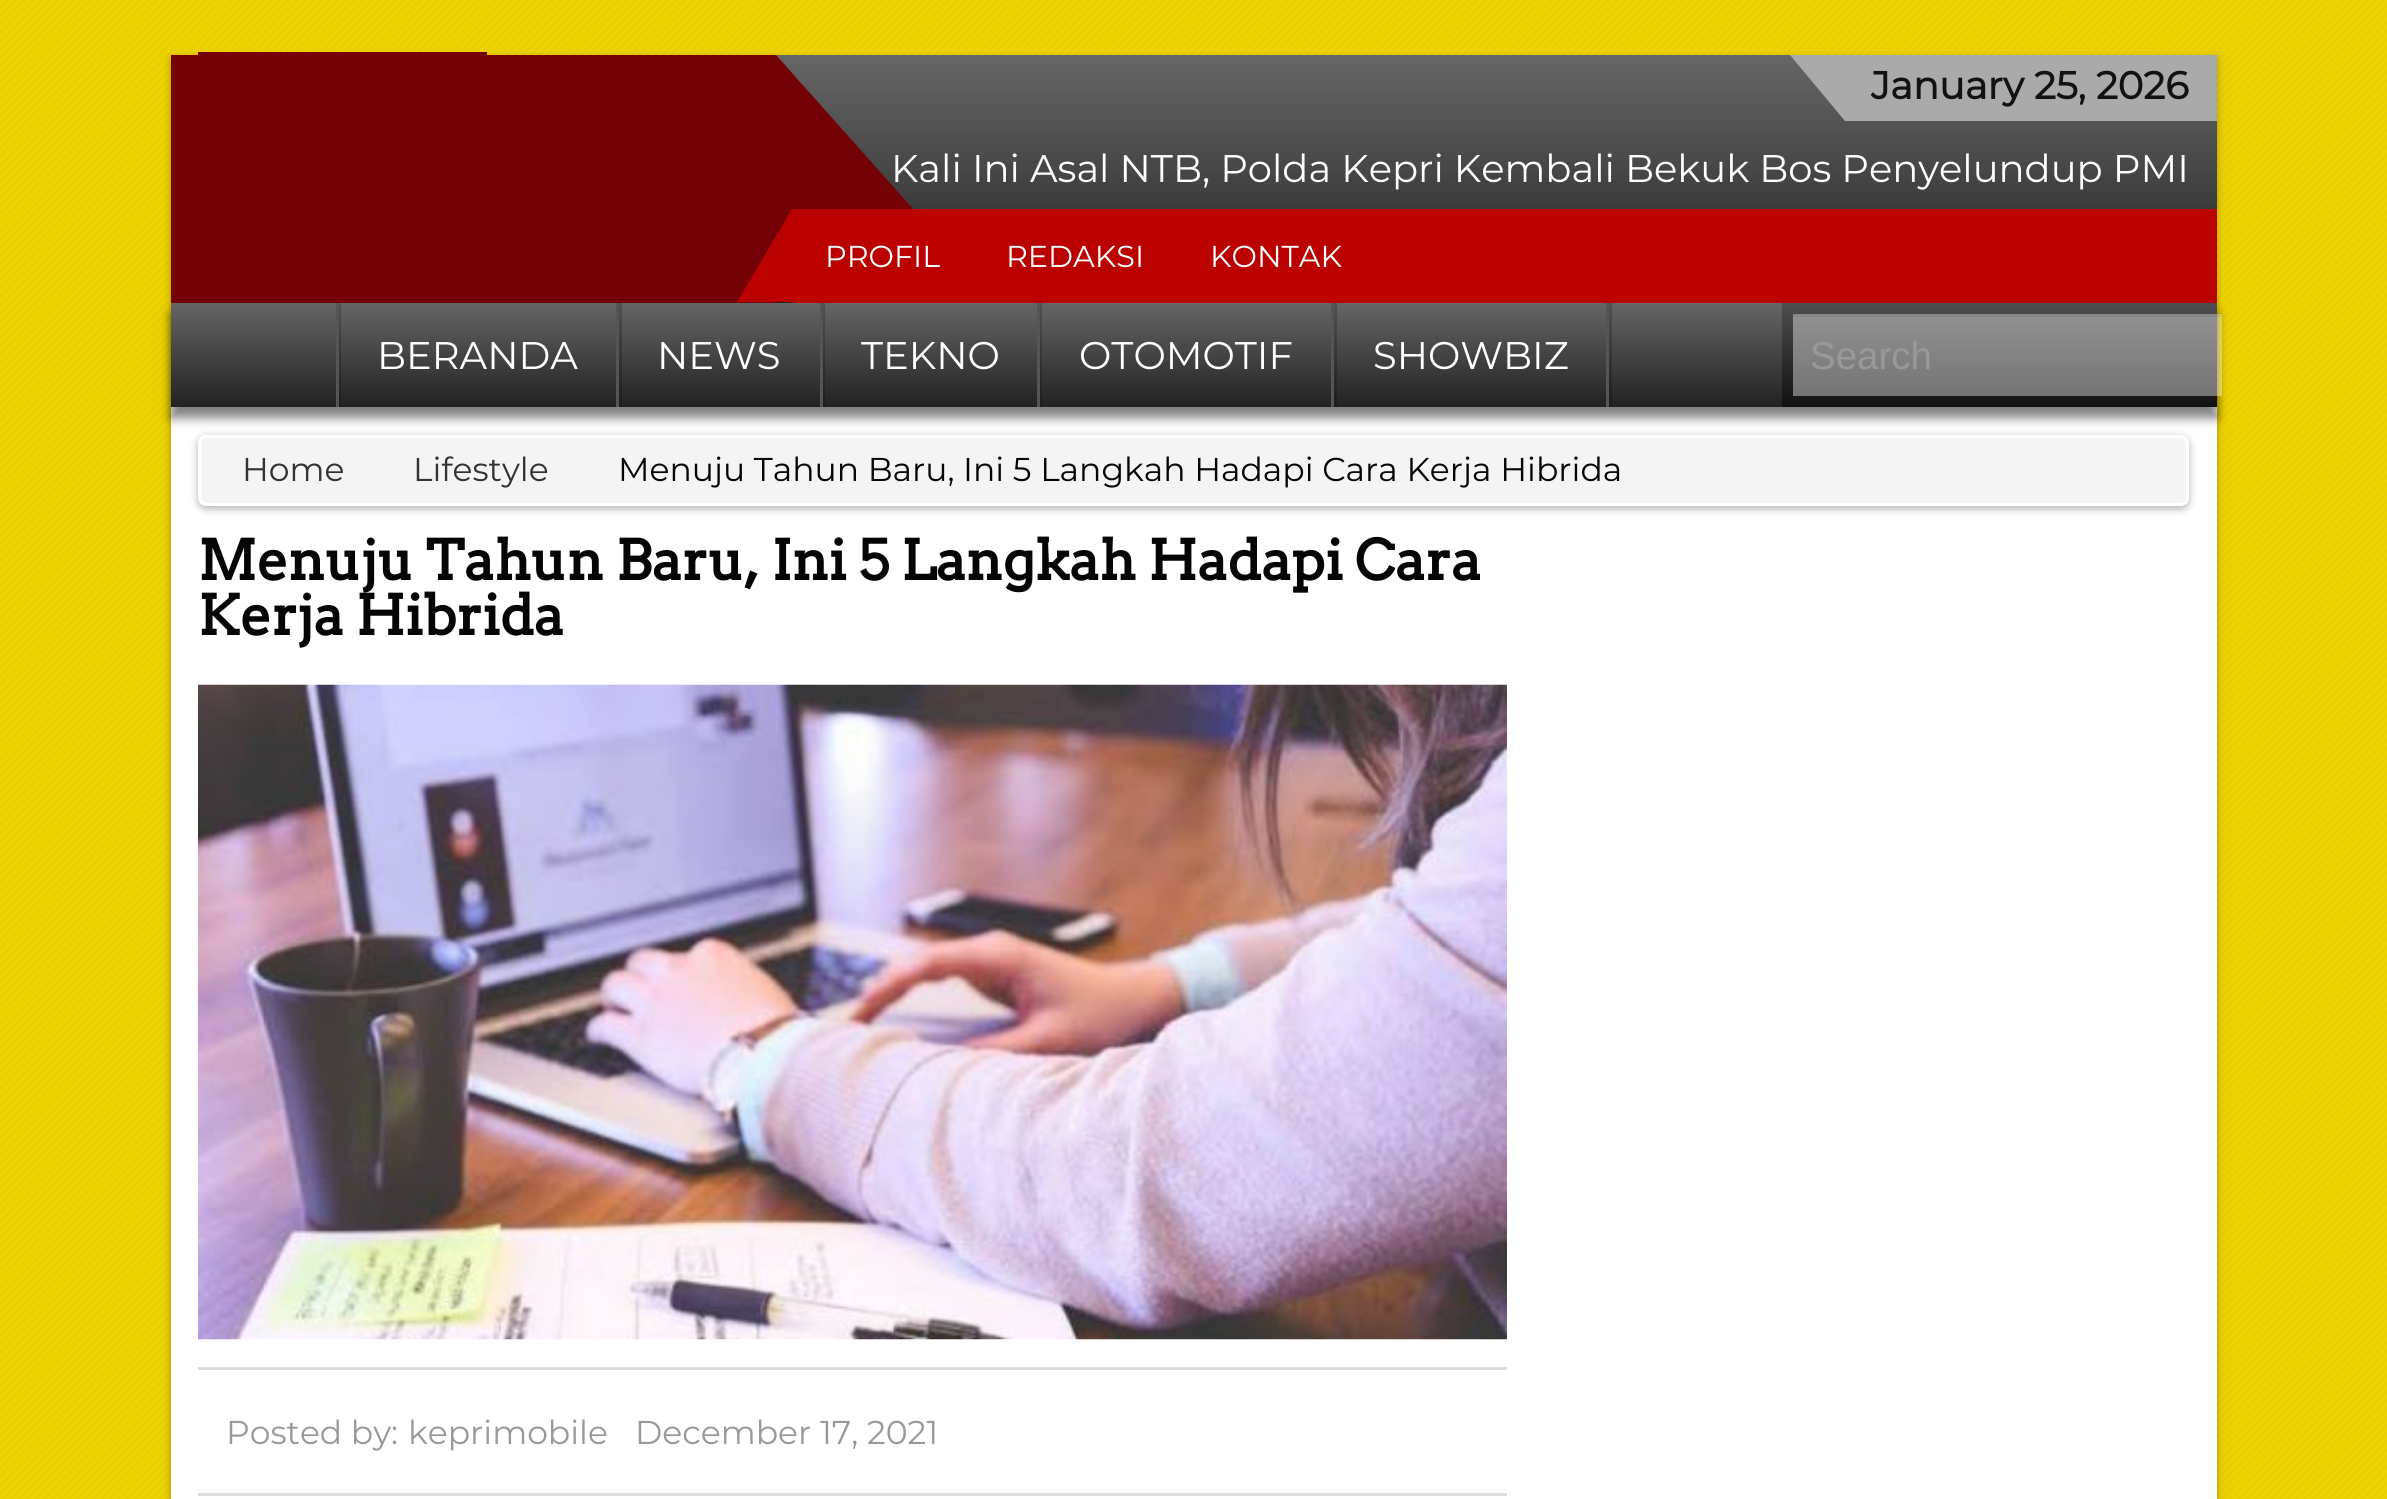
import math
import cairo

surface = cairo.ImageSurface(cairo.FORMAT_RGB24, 2387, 1499)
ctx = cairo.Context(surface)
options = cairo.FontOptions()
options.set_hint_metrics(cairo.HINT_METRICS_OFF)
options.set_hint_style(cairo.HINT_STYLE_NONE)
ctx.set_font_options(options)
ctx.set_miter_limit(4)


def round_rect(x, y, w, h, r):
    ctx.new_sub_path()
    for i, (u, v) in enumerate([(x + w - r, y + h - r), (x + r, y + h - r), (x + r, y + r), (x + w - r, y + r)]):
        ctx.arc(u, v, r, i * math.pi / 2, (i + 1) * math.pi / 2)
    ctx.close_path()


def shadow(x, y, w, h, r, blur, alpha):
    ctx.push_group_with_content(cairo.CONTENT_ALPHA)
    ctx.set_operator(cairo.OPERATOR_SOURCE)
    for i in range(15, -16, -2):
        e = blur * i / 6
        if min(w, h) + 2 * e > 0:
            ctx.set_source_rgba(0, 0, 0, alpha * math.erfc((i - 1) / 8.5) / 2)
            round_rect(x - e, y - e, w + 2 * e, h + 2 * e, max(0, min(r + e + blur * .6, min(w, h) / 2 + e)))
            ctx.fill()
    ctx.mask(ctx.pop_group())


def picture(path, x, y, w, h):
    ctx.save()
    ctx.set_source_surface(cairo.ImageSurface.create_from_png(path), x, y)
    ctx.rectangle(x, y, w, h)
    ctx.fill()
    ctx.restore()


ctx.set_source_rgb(0.937, 0.827, 0)
ctx.paint()
picture("img1.png", 0, 0, 2387, 1499)
ctx.set_source_rgb(0, 0, 0)
shadow(171, 58, 2046, 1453, 0, 4, 0.3)
ctx.set_source_rgb(1, 1, 1)
ctx.rectangle(171, 407, 2046, 1092)
ctx.fill()
gradient = cairo.LinearGradient(1194, 55, 1194, 303)
gradient.add_color_stop_rgba(0, 0.4, 0.4, 0.4, 1)
gradient.add_color_stop_rgba(1, 0.133, 0.133, 0.133, 1)
ctx.set_source(gradient)
ctx.rectangle(776, 55, 1441, 248)
ctx.fill()
ctx.set_source_rgb(0.455, 0.004, 0.024)
ctx.rectangle(171, 55, 605, 248)
ctx.fill()
ctx.rectangle(198, 52, 289, 3)
ctx.fill()
ctx.select_font_face("Montserrat Thin")
ctx.set_font_size(38.5)
ctx.set_source_rgb(0.996, 0.996, 0.996)
ctx.move_to(891, 182)
ctx.show_text("Kali Ini Asal NTB, Polda Kepri Kembali Bekuk Bos Penyelundup PMI")
ctx.set_source_rgb(0.455, 0.004, 0.024)
ctx.new_path()
ctx.move_to(776, 302)
ctx.line_to(776, 55)
ctx.line_to(996, 302)
ctx.close_path()
ctx.fill()
ctx.set_source_rgb(0.667, 0.667, 0.667)
ctx.rectangle(1845, 55, 372, 66)
ctx.fill()
ctx.new_path()
ctx.move_to(1845, 55)
ctx.line_to(1845, 121)
ctx.line_to(1790, 55)
ctx.close_path()
ctx.fill()
ctx.select_font_face("Montserrat", cairo.FONT_SLANT_NORMAL, cairo.FONT_WEIGHT_BOLD)
ctx.set_source_rgb(0.071, 0.071, 0.071)
ctx.move_to(1871, 99)
ctx.show_text("January 25, 2026")
ctx.set_source_rgb(0.733, 0, 0)
ctx.rectangle(792, 209, 1425, 94)
ctx.fill()
ctx.new_path()
ctx.move_to(792, 209)
ctx.line_to(792, 302)
ctx.line_to(737, 302)
ctx.close_path()
ctx.fill()
ctx.select_font_face("Montserrat Thin")
ctx.set_font_size(30.25)
ctx.set_source_rgb(0.996, 0.996, 0.996)
ctx.move_to(825, 267)
ctx.show_text("PROFIL")
ctx.move_to(1006, 267)
ctx.show_text("REDAKSI")
ctx.move_to(1210, 267)
ctx.show_text("KONTAK")
ctx.set_source_rgb(0, 0, 0)
shadow(198, 437, 1991, 72, 8, 4, 0.3)
ctx.set_source_rgb(0.957, 0.957, 0.957)
round_rect(199.5, 436.5, 1988, 68, 6.5)
ctx.fill_preserve()
ctx.set_source_rgb(1, 1, 1)
ctx.set_line_width(3)
ctx.stroke()
ctx.set_source_rgb(0, 0, 0)
shadow(171, 314, 2046, 104, 0, 5.5, 0.5)
gradient = cairo.LinearGradient(1194, 302, 1194, 407)
gradient.add_color_stop_rgba(0, 0.4, 0.4, 0.4, 1)
gradient.add_color_stop_rgba(1, 0.133, 0.133, 0.133, 1)
ctx.set_source(gradient)
ctx.rectangle(171, 303, 1611, 104)
ctx.fill()
ctx.set_source_rgba(0, 0, 0, 0.2)
ctx.rectangle(339, 303, 2, 104)
ctx.fill()
ctx.set_source_rgb(0.333, 0.333, 0.333)
ctx.rectangle(336, 303, 3, 104)
ctx.fill()
ctx.set_source_rgba(0, 0, 0, 0.2)
ctx.rectangle(619, 303, 3, 104)
ctx.fill()
ctx.set_source_rgb(0.333, 0.333, 0.333)
ctx.rectangle(616, 303, 3, 104)
ctx.fill()
ctx.set_font_size(38.5)
ctx.set_source_rgb(0.996, 0.996, 0.996)
ctx.move_to(377, 369)
ctx.show_text("BERANDA")
ctx.set_source_rgba(0, 0, 0, 0.2)
ctx.rectangle(823, 303, 2, 104)
ctx.fill()
ctx.set_source_rgb(0.333, 0.333, 0.333)
ctx.rectangle(820, 303, 3, 104)
ctx.fill()
ctx.set_source_rgb(0.996, 0.996, 0.996)
ctx.move_to(657, 369)
ctx.show_text("NEWS")
ctx.set_source_rgba(0, 0, 0, 0.2)
ctx.rectangle(1040, 303, 2, 104)
ctx.fill()
ctx.set_source_rgb(0.333, 0.333, 0.333)
ctx.rectangle(1037, 303, 3, 104)
ctx.fill()
ctx.set_source_rgb(0.996, 0.996, 0.996)
ctx.move_to(861, 369)
ctx.show_text("TEKNO")
ctx.set_source_rgba(0, 0, 0, 0.2)
ctx.rectangle(1334, 303, 3, 104)
ctx.fill()
ctx.set_source_rgb(0.333, 0.333, 0.333)
ctx.rectangle(1331, 303, 3, 104)
ctx.fill()
ctx.set_source_rgb(0.996, 0.996, 0.996)
ctx.move_to(1079, 369)
ctx.show_text("OTOMOTIF")
ctx.set_source_rgba(0, 0, 0, 0.2)
ctx.rectangle(1609, 303, 3, 104)
ctx.fill()
ctx.set_source_rgb(0.333, 0.333, 0.333)
ctx.rectangle(1606, 303, 3, 104)
ctx.fill()
ctx.set_source_rgb(0.996, 0.996, 0.996)
ctx.move_to(1373, 369)
ctx.show_text("SHOWBIZ")
gradient = cairo.LinearGradient(1999, 302, 1999, 407)
gradient.add_color_stop_rgba(0, 0.31, 0.31, 0.31, 1)
gradient.add_color_stop_rgba(1, 0.067, 0.067, 0.067, 1)
ctx.set_source(gradient)
ctx.rectangle(1782, 303, 435, 104)
ctx.fill()
ctx.set_source_rgba(1, 1, 1, 0.4)
ctx.rectangle(1793, 314, 429, 82)
ctx.fill()
ctx.set_source_rgba(0, 0, 0, 0.07)
ctx.rectangle(1793, 314, 429, 3)
ctx.fill()
ctx.select_font_face("Liberation Sans")
ctx.set_source_rgb(0.6, 0.6, 0.6)
ctx.move_to(1810, 369)
ctx.show_text("Search")
ctx.select_font_face("Montserrat Thin")
ctx.set_font_size(33)
ctx.set_source_rgb(0.2, 0.2, 0.2)
ctx.move_to(242, 481)
ctx.show_text("Home")
ctx.move_to(413, 481)
ctx.show_text("Lifestyle")
ctx.set_source_rgb(0.02, 0.02, 0.02)
ctx.move_to(618, 481)
ctx.show_text("Menuju Tahun Baru, Ini 5 Langkah Hadapi Cara Kerja Hibrida")
ctx.select_font_face("Arvo", cairo.FONT_SLANT_NORMAL, cairo.FONT_WEIGHT_BOLD)
ctx.set_font_size(55)
ctx.move_to(198, 580)
ctx.show_text("Menuju Tahun Baru, Ini 5 Langkah Hadapi Cara")
ctx.move_to(198, 635)
ctx.show_text("Kerja Hibrida")
picture("img2.png", 198, 684, 1309, 656)
ctx.set_source_rgb(0.867, 0.867, 0.867)
ctx.rectangle(198, 1367, 1309, 3)
ctx.fill()
ctx.rectangle(198, 1493, 1309, 3)
ctx.fill()
ctx.select_font_face("Montserrat Thin")
ctx.set_font_size(33)
ctx.set_source_rgb(0.6, 0.6, 0.6)
ctx.move_to(226, 1444)
ctx.show_text("Posted by:")
ctx.move_to(408, 1444)
ctx.show_text("keprimobile")
ctx.move_to(635, 1444)
ctx.show_text("December 17, 2021")
surface.write_to_png("page.png")
